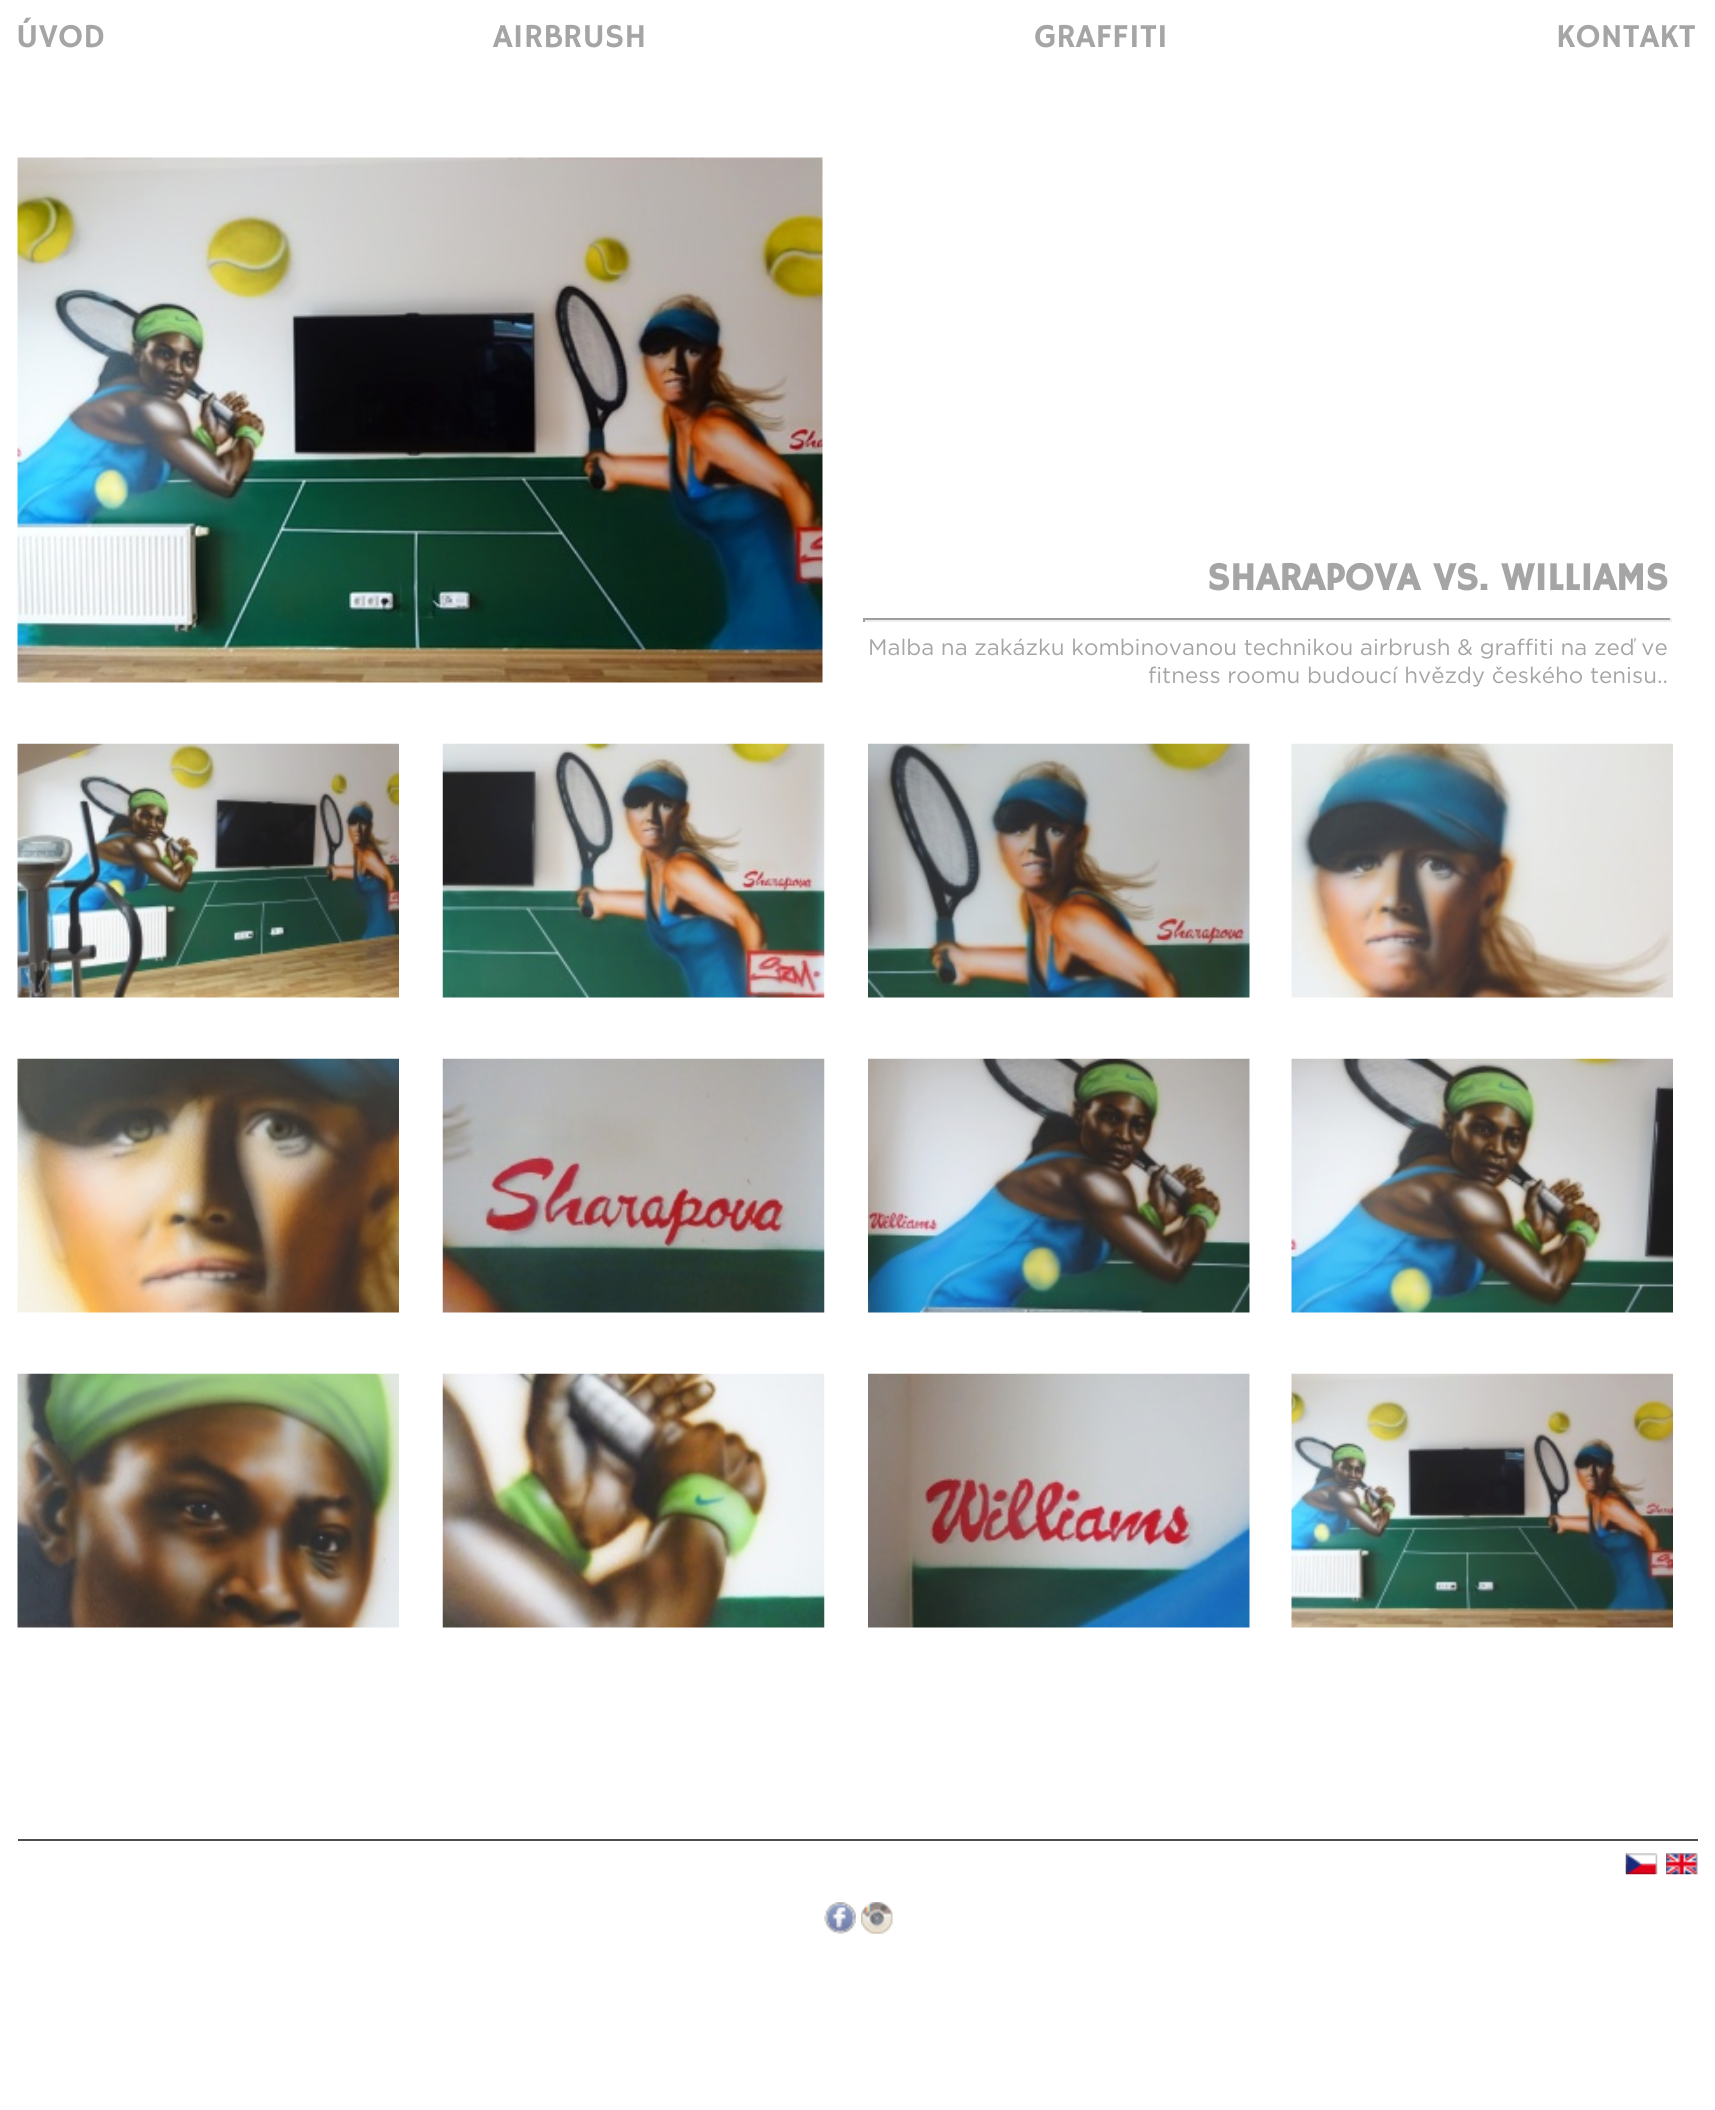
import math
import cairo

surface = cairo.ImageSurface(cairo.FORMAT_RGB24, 1715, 2110)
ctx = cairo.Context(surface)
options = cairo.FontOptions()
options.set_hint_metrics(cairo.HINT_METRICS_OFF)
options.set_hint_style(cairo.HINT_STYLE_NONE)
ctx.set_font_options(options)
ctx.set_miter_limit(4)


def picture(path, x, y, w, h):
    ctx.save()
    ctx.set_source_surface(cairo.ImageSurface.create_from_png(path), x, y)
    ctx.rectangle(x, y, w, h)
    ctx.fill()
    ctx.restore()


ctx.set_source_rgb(1, 1, 1)
ctx.paint()
ctx.set_source_rgb(0.302, 0.302, 0.302)
ctx.rectangle(18, 1839, 1680, 2)
ctx.fill()
ctx.select_font_face("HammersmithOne")
ctx.set_font_size(33.5)
ctx.set_source_rgb(0.647, 0.647, 0.647)
ctx.move_to(16, 47)
ctx.show_text("ÚVOD")
ctx.move_to(493, 47)
ctx.show_text("AIRBRUSH")
ctx.move_to(1034, 47)
ctx.show_text("GRAFFITI")
ctx.move_to(1556, 47)
ctx.show_text("KONTAKT")
picture("img1.png", 1625, 1853, 33, 22)
picture("img2.png", 1666, 1853, 32, 22)
picture("img3.png", 824, 1902, 32, 32)
picture("img4.png", 861, 1902, 32, 32)
picture("img5.png", 17, 157, 806, 526)
ctx.select_font_face("HammersmithOne", cairo.FONT_SLANT_NORMAL, cairo.FONT_WEIGHT_BOLD)
ctx.set_font_size(39.25)
ctx.move_to(1207, 590)
ctx.show_text("SHARAPOVA VS. WILLIAMS")
ctx.set_source_rgb(0.624, 0.624, 0.624)
ctx.rectangle(863, 618, 808, 2)
ctx.fill()
ctx.set_source_rgb(0.933, 0.933, 0.933)
ctx.rectangle(1670, 618, 2, 4)
ctx.fill()
ctx.rectangle(863, 620, 808, 2)
ctx.fill()
ctx.set_source_rgb(0.624, 0.624, 0.624)
ctx.rectangle(863, 618, 2, 4)
ctx.fill()
ctx.select_font_face("Gotham")
ctx.set_font_size(22.4)
ctx.set_source_rgb(0.647, 0.647, 0.647)
ctx.move_to(868, 655)
ctx.show_text("Malba na zakázku kombinovanou technikou airbrush & graffiti na zeď ve")
ctx.move_to(1148, 683)
ctx.show_text("fitness roomu budoucí hvězdy českého tenisu..")
picture("img6.png", 17, 743, 382, 255)
picture("img7.png", 442, 743, 383, 255)
picture("img8.png", 868, 743, 382, 255)
picture("img9.png", 1291, 743, 382, 255)
picture("img10.png", 17, 1058, 382, 255)
picture("img11.png", 442, 1058, 383, 255)
picture("img12.png", 868, 1058, 382, 255)
picture("img13.png", 1291, 1058, 382, 255)
picture("img14.png", 17, 1373, 382, 255)
picture("img15.png", 442, 1373, 383, 255)
picture("img16.png", 868, 1373, 382, 255)
picture("img17.png", 1291, 1373, 382, 255)
surface.write_to_png("page.png")
